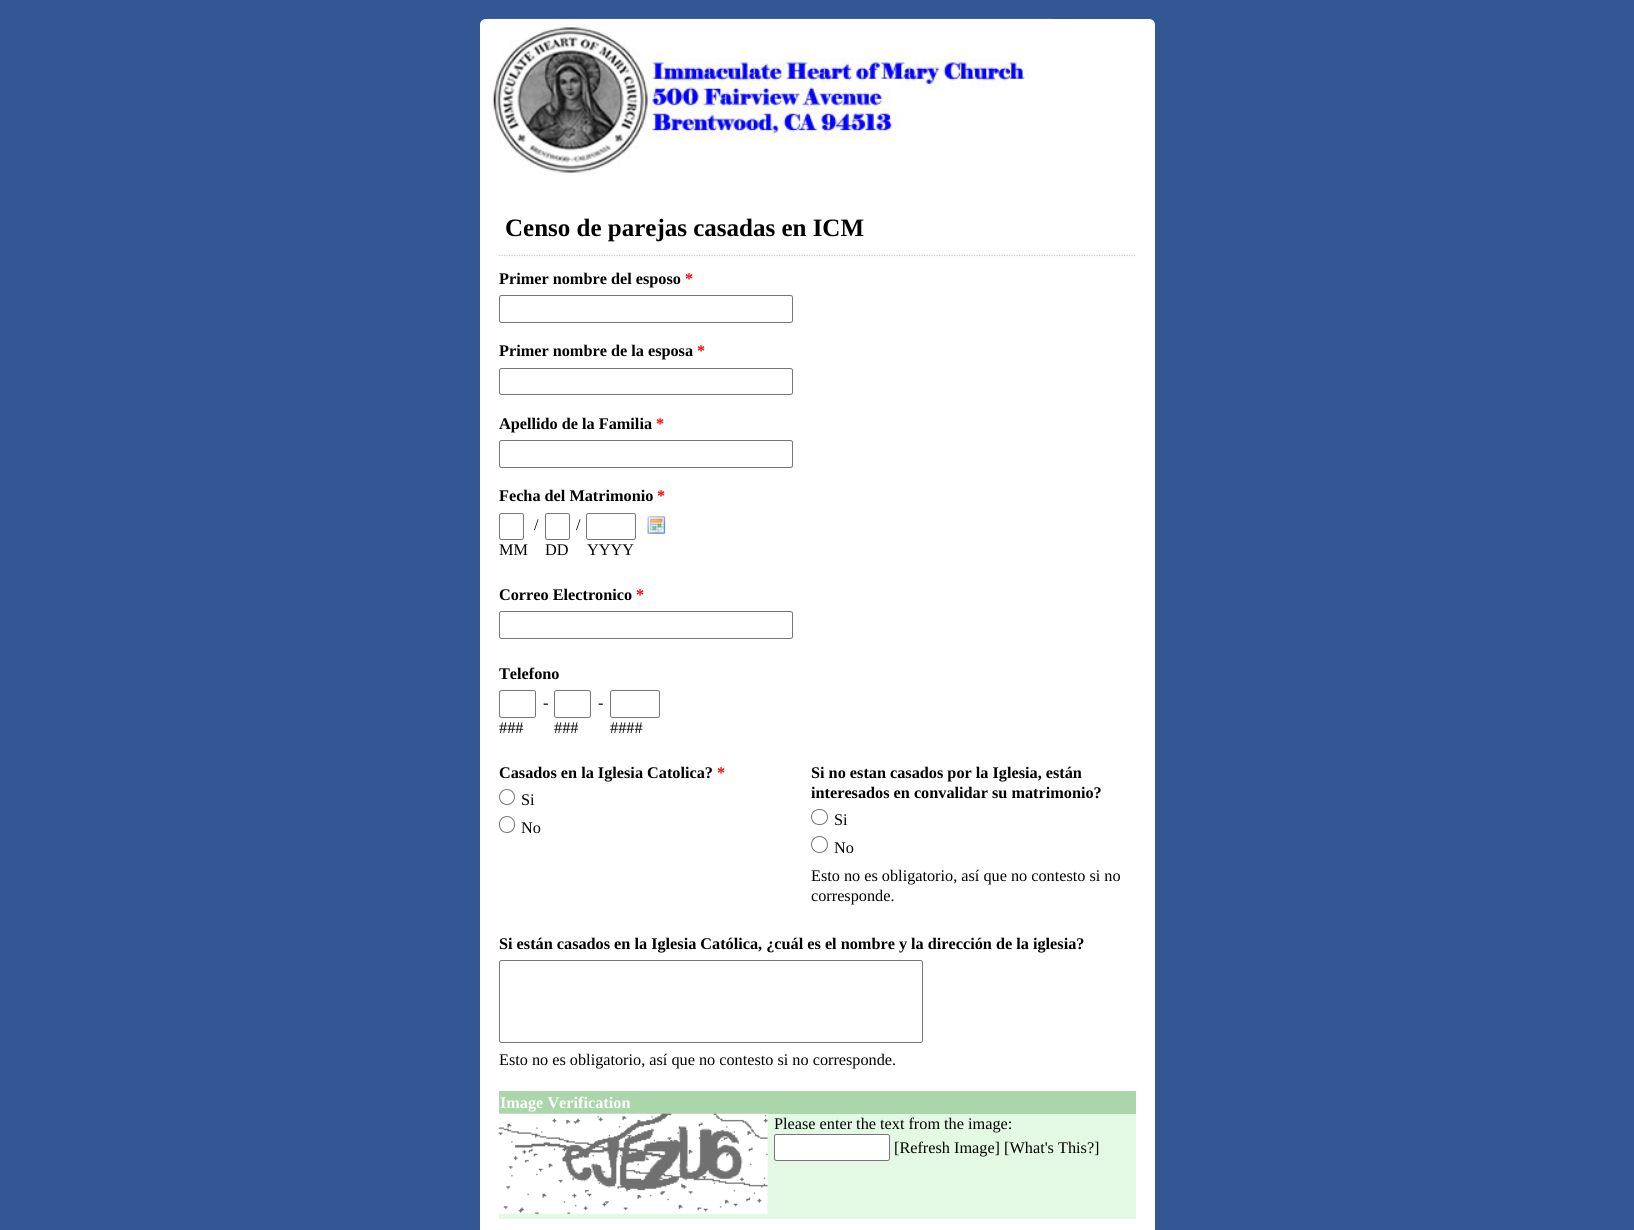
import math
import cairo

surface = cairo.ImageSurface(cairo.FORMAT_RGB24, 1634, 1230)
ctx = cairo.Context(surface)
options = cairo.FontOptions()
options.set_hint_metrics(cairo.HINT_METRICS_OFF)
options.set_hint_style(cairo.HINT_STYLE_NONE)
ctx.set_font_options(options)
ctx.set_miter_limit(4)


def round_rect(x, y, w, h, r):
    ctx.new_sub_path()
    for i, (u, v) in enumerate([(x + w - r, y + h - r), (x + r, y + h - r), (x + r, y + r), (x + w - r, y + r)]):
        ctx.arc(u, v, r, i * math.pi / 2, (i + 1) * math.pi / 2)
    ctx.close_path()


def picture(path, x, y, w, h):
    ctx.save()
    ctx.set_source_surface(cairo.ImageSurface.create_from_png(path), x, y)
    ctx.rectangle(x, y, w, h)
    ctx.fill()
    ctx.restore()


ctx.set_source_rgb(0.2, 0.341, 0.584)
ctx.paint()
ctx.set_source_rgb(1, 1, 1)
round_rect(480, 19, 675, 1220, 9)
ctx.fill()
ctx.new_path()
ctx.move_to(486, 19)
ctx.line_to(1149, 19)
ctx.curve_to(1152.5, 19, 1155, 21.5, 1155, 25)
ctx.line_to(1155, 183)
ctx.line_to(480, 183)
ctx.line_to(480, 25)
ctx.curve_to(480, 21.5, 482.5, 19, 486, 19)
ctx.close_path()
ctx.fill()
picture("img1.png", 481, 18, 572, 157)
ctx.new_path()
ctx.move_to(499, 255.5)
ctx.line_to(1136, 255.5)
ctx.set_source_rgb(0.8, 0.8, 0.8)
ctx.set_line_width(1.2)
ctx.set_dash([1.25, 1.25])
ctx.stroke()
ctx.select_font_face("Liberation Serif", cairo.FONT_SLANT_NORMAL, cairo.FONT_WEIGHT_BOLD)
ctx.set_font_size(25)
ctx.set_source_rgb(0, 0, 0)
ctx.move_to(505, 236)
ctx.show_text("Censo de parejas casadas en ICM")
ctx.set_font_size(16.25)
ctx.move_to(499, 284)
ctx.show_text("Primer nombre del esposo")
ctx.set_source_rgb(1, 0, 0)
ctx.move_to(685, 284)
ctx.show_text("*")
round_rect(499.5, 295.5, 293, 27, 2)
ctx.set_source_rgb(0.463, 0.463, 0.463)
ctx.set_line_width(1)
ctx.set_dash([])
ctx.stroke()
ctx.set_source_rgb(0, 0, 0)
ctx.move_to(499, 356)
ctx.show_text("Primer nombre de la esposa")
ctx.set_source_rgb(1, 0, 0)
ctx.move_to(697, 356)
ctx.show_text("*")
round_rect(499.5, 368.5, 293, 26, 2)
ctx.set_source_rgb(0.463, 0.463, 0.463)
ctx.stroke()
ctx.set_source_rgb(0, 0, 0)
ctx.move_to(499, 429)
ctx.show_text("Apellido de la Familia")
ctx.set_source_rgb(1, 0, 0)
ctx.move_to(656, 429)
ctx.show_text("*")
round_rect(499.5, 440.5, 293, 27, 2)
ctx.set_source_rgb(0.463, 0.463, 0.463)
ctx.stroke()
ctx.set_source_rgb(0, 0, 0)
ctx.move_to(499, 501)
ctx.show_text("Fecha del Matrimonio")
ctx.set_source_rgb(1, 0, 0)
ctx.move_to(657, 501)
ctx.show_text("*")
ctx.select_font_face("Liberation Serif")
ctx.set_source_rgb(0, 0, 0)
ctx.move_to(534, 530)
ctx.show_text("/")
ctx.move_to(576, 530)
ctx.show_text("/")
picture("img2.png", 647, 516, 19, 18)
round_rect(499.5, 513.5, 24, 26, 2)
ctx.set_source_rgb(0.463, 0.463, 0.463)
ctx.stroke()
ctx.set_source_rgb(0, 0, 0)
ctx.move_to(499, 555)
ctx.show_text("MM")
round_rect(545.5, 513.5, 24, 26, 2)
ctx.set_source_rgb(0.463, 0.463, 0.463)
ctx.stroke()
ctx.set_source_rgb(0, 0, 0)
ctx.move_to(545, 555)
ctx.show_text("DD")
round_rect(586.5, 513.5, 49, 26, 2)
ctx.set_source_rgb(0.463, 0.463, 0.463)
ctx.stroke()
ctx.set_source_rgb(0, 0, 0)
ctx.move_to(587, 555)
ctx.show_text("YYYY")
ctx.select_font_face("Liberation Serif", cairo.FONT_SLANT_NORMAL, cairo.FONT_WEIGHT_BOLD)
ctx.move_to(499, 600)
ctx.show_text("Correo Electronico")
ctx.set_source_rgb(1, 0, 0)
ctx.move_to(636, 600)
ctx.show_text("*")
round_rect(499.5, 611.5, 293, 27, 2)
ctx.set_source_rgb(0.463, 0.463, 0.463)
ctx.stroke()
ctx.set_source_rgb(0, 0, 0)
ctx.move_to(499, 679)
ctx.show_text("Telefono")
ctx.select_font_face("Liberation Serif")
ctx.move_to(543, 708)
ctx.show_text("-")
ctx.move_to(598, 708)
ctx.show_text("-")
round_rect(499.5, 690.5, 36, 27, 2)
ctx.set_source_rgb(0.463, 0.463, 0.463)
ctx.stroke()
ctx.set_source_rgb(0, 0, 0)
ctx.move_to(499, 733)
ctx.show_text("###")
round_rect(554.5, 690.5, 36, 27, 2)
ctx.set_source_rgb(0.463, 0.463, 0.463)
ctx.stroke()
ctx.set_source_rgb(0, 0, 0)
ctx.move_to(554, 733)
ctx.show_text("###")
round_rect(610.5, 690.5, 49, 27, 2)
ctx.set_source_rgb(0.463, 0.463, 0.463)
ctx.stroke()
ctx.set_source_rgb(0, 0, 0)
ctx.move_to(610, 733)
ctx.show_text("####")
ctx.select_font_face("Liberation Serif", cairo.FONT_SLANT_NORMAL, cairo.FONT_WEIGHT_BOLD)
ctx.move_to(499, 778)
ctx.show_text("Casados en la Iglesia Catolica?")
ctx.set_source_rgb(1, 0, 0)
ctx.move_to(717, 778)
ctx.show_text("*")
ctx.new_path()
ctx.arc(507, 797, 7.5, 0, 2 * math.pi)
ctx.set_source_rgb(0.463, 0.463, 0.463)
ctx.stroke()
ctx.select_font_face("Liberation Serif")
ctx.set_source_rgb(0, 0, 0)
ctx.move_to(521, 805)
ctx.show_text("Si")
round_rect(499.5, 816.5, 15, 16, 7.5)
ctx.set_source_rgb(0.463, 0.463, 0.463)
ctx.stroke()
ctx.set_source_rgb(0, 0, 0)
ctx.move_to(521, 833)
ctx.show_text("No")
ctx.select_font_face("Liberation Serif", cairo.FONT_SLANT_NORMAL, cairo.FONT_WEIGHT_BOLD)
ctx.move_to(811, 778)
ctx.show_text("Si no estan casados por la Iglesia, están")
ctx.move_to(811, 798)
ctx.show_text("interesados en convalidar su matrimonio?")
round_rect(811.5, 809.5, 16, 15, 7.5)
ctx.set_source_rgb(0.463, 0.463, 0.463)
ctx.stroke()
ctx.select_font_face("Liberation Serif")
ctx.set_source_rgb(0, 0, 0)
ctx.move_to(834, 825)
ctx.show_text("Si")
ctx.new_path()
ctx.arc(819.5, 844.5, 8, 0, 2 * math.pi)
ctx.set_source_rgb(0.463, 0.463, 0.463)
ctx.stroke()
ctx.set_source_rgb(0, 0, 0)
ctx.move_to(834, 853)
ctx.show_text("No")
ctx.move_to(811, 881)
ctx.show_text("Esto no es obligatorio, así que no contesto si no")
ctx.move_to(811, 901)
ctx.show_text("corresponde.")
ctx.select_font_face("Liberation Serif", cairo.FONT_SLANT_NORMAL, cairo.FONT_WEIGHT_BOLD)
ctx.move_to(499, 949)
ctx.show_text("Si están casados en la Iglesia Católica, ¿cuál es el nombre y la dirección de la iglesia?")
round_rect(499.5, 960.5, 423, 82, 2)
ctx.set_source_rgb(0.463, 0.463, 0.463)
ctx.stroke()
ctx.select_font_face("Liberation Serif")
ctx.set_source_rgb(0, 0, 0)
ctx.move_to(499, 1065)
ctx.show_text("Esto no es obligatorio, así que no contesto si no corresponde.")
ctx.set_source_rgb(0.667, 0.839, 0.667)
ctx.rectangle(499, 1091, 637, 23)
ctx.fill()
ctx.select_font_face("Liberation Serif", cairo.FONT_SLANT_NORMAL, cairo.FONT_WEIGHT_BOLD)
ctx.set_source_rgb(1, 1, 1)
ctx.move_to(500, 1108)
ctx.show_text("Image Verification")
ctx.set_source_rgb(0.894, 0.973, 0.894)
ctx.rectangle(499, 1114, 637, 105)
ctx.fill()
picture("img3.png", 498, 1113, 270, 101)
ctx.select_font_face("Liberation Serif")
ctx.set_source_rgb(0, 0, 0)
ctx.move_to(774, 1129)
ctx.show_text("Please enter the text from the image:")
ctx.set_source_rgb(1, 1, 1)
round_rect(774.5, 1134.5, 115, 26, 2)
ctx.fill_preserve()
ctx.set_source_rgb(0.463, 0.463, 0.463)
ctx.stroke()
ctx.set_source_rgb(0, 0, 0)
ctx.move_to(894, 1153)
ctx.show_text("[Refresh Image] [What's This?]")
surface.write_to_png("page.png")
